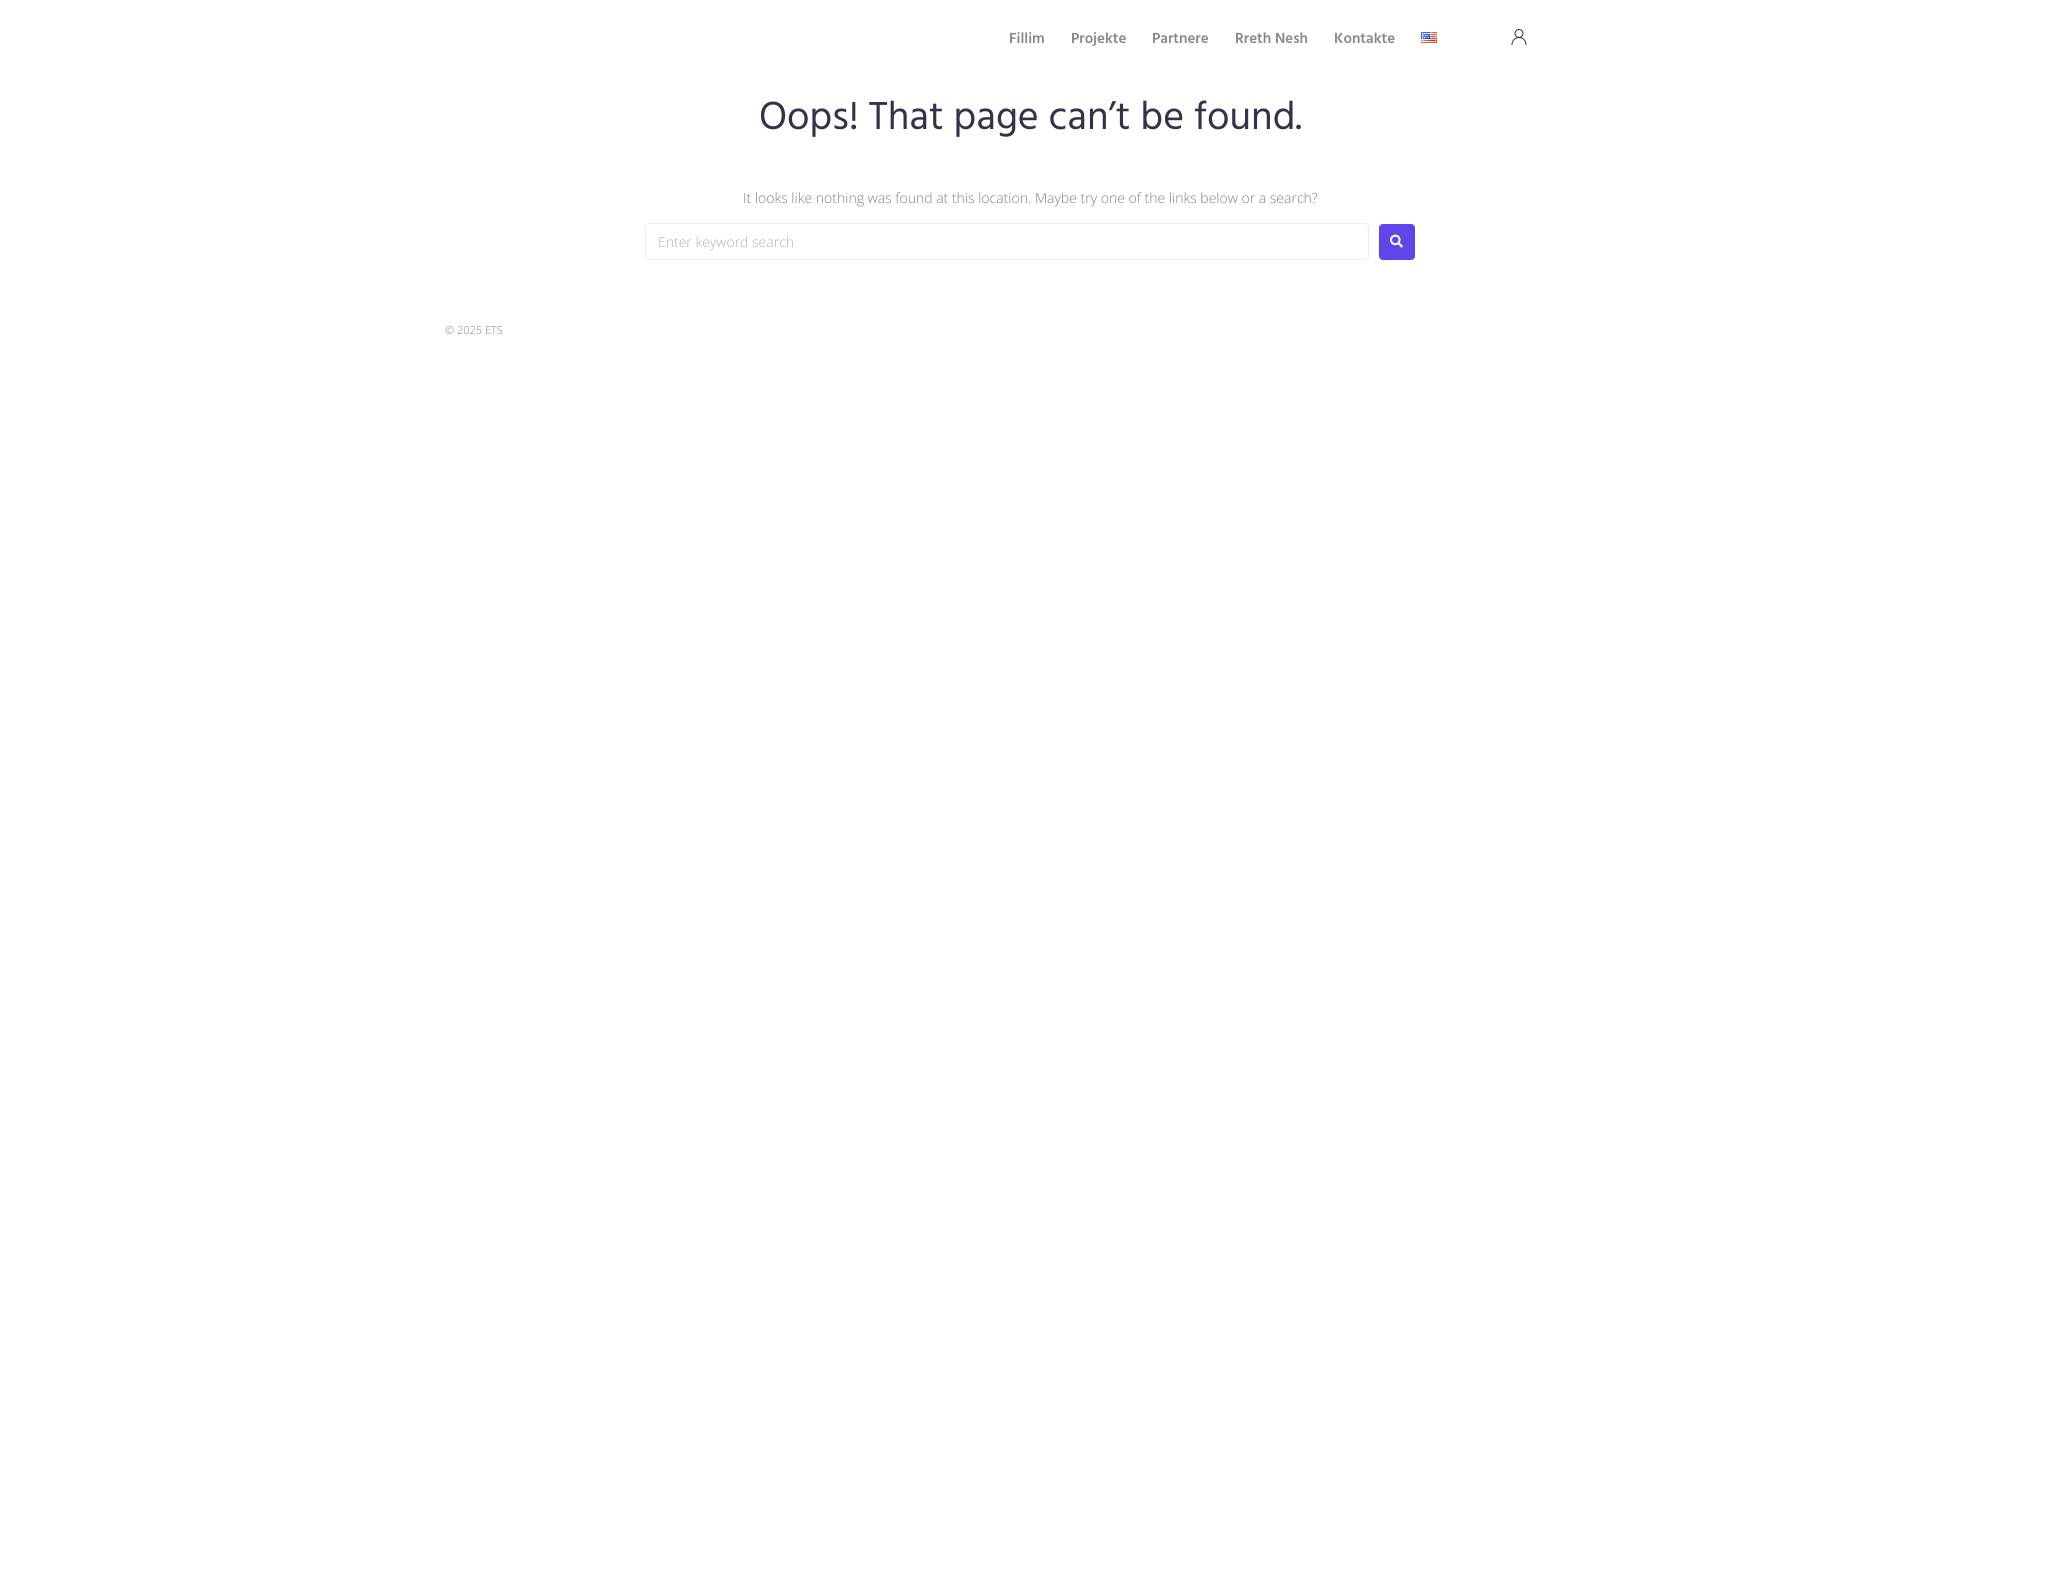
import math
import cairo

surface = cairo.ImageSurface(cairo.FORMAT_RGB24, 2060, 1569)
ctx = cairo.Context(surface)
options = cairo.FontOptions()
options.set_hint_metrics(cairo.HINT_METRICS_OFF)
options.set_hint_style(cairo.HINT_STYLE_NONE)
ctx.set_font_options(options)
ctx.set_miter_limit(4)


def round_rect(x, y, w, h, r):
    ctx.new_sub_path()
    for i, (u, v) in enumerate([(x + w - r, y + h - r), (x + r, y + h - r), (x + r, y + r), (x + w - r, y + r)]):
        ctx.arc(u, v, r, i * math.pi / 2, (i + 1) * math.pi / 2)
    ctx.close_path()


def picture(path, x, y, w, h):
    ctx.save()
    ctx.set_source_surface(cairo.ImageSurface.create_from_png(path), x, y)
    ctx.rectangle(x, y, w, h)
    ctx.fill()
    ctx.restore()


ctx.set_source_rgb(1, 1, 1)
ctx.paint()
ctx.select_font_face("Hind SemiBold")
ctx.set_font_size(15)
ctx.set_source_rgb(0.537, 0.537, 0.537)
ctx.move_to(1009, 43)
ctx.show_text("Fillim")
ctx.move_to(1071, 43)
ctx.show_text("Projekte")
ctx.move_to(1152, 43)
ctx.show_text("Partnere")
ctx.move_to(1235, 43)
ctx.show_text("Rreth Nesh")
ctx.move_to(1334, 43)
ctx.show_text("Kontakte")
picture("img1.png", 1421, 32, 16, 11)
picture("img2.png", 1511, 29, 16, 16)
ctx.select_font_face("Hind")
ctx.set_font_size(40)
ctx.set_source_rgb(0.204, 0.192, 0.294)
ctx.move_to(759, 129)
ctx.show_text("Oops! That page can’t be found.")
ctx.select_font_face("Open Sans Light")
ctx.set_font_size(14)
ctx.set_source_rgb(0.498, 0.49, 0.557)
ctx.move_to(743, 203)
ctx.show_text("It looks like nothing was found at this location. Maybe try one of the links below or a search?")
round_rect(645.5, 223.5, 723, 36, 3.5)
ctx.set_source_rgb(0.922, 0.925, 0.929)
ctx.set_line_width(1)
ctx.stroke()
ctx.set_source_rgb(0.69, 0.682, 0.745)
ctx.move_to(658, 247)
ctx.show_text("Enter keyword search")
ctx.set_source_rgb(0.373, 0.271, 0.918)
round_rect(1379, 224, 36, 36, 4)
ctx.fill()
picture("img3.png", 1390, 234, 13, 14)
ctx.set_font_size(11)
ctx.set_source_rgb(0.498, 0.49, 0.557)
ctx.move_to(445, 334)
ctx.show_text("© 2025 ETS")
surface.write_to_png("page.png")
